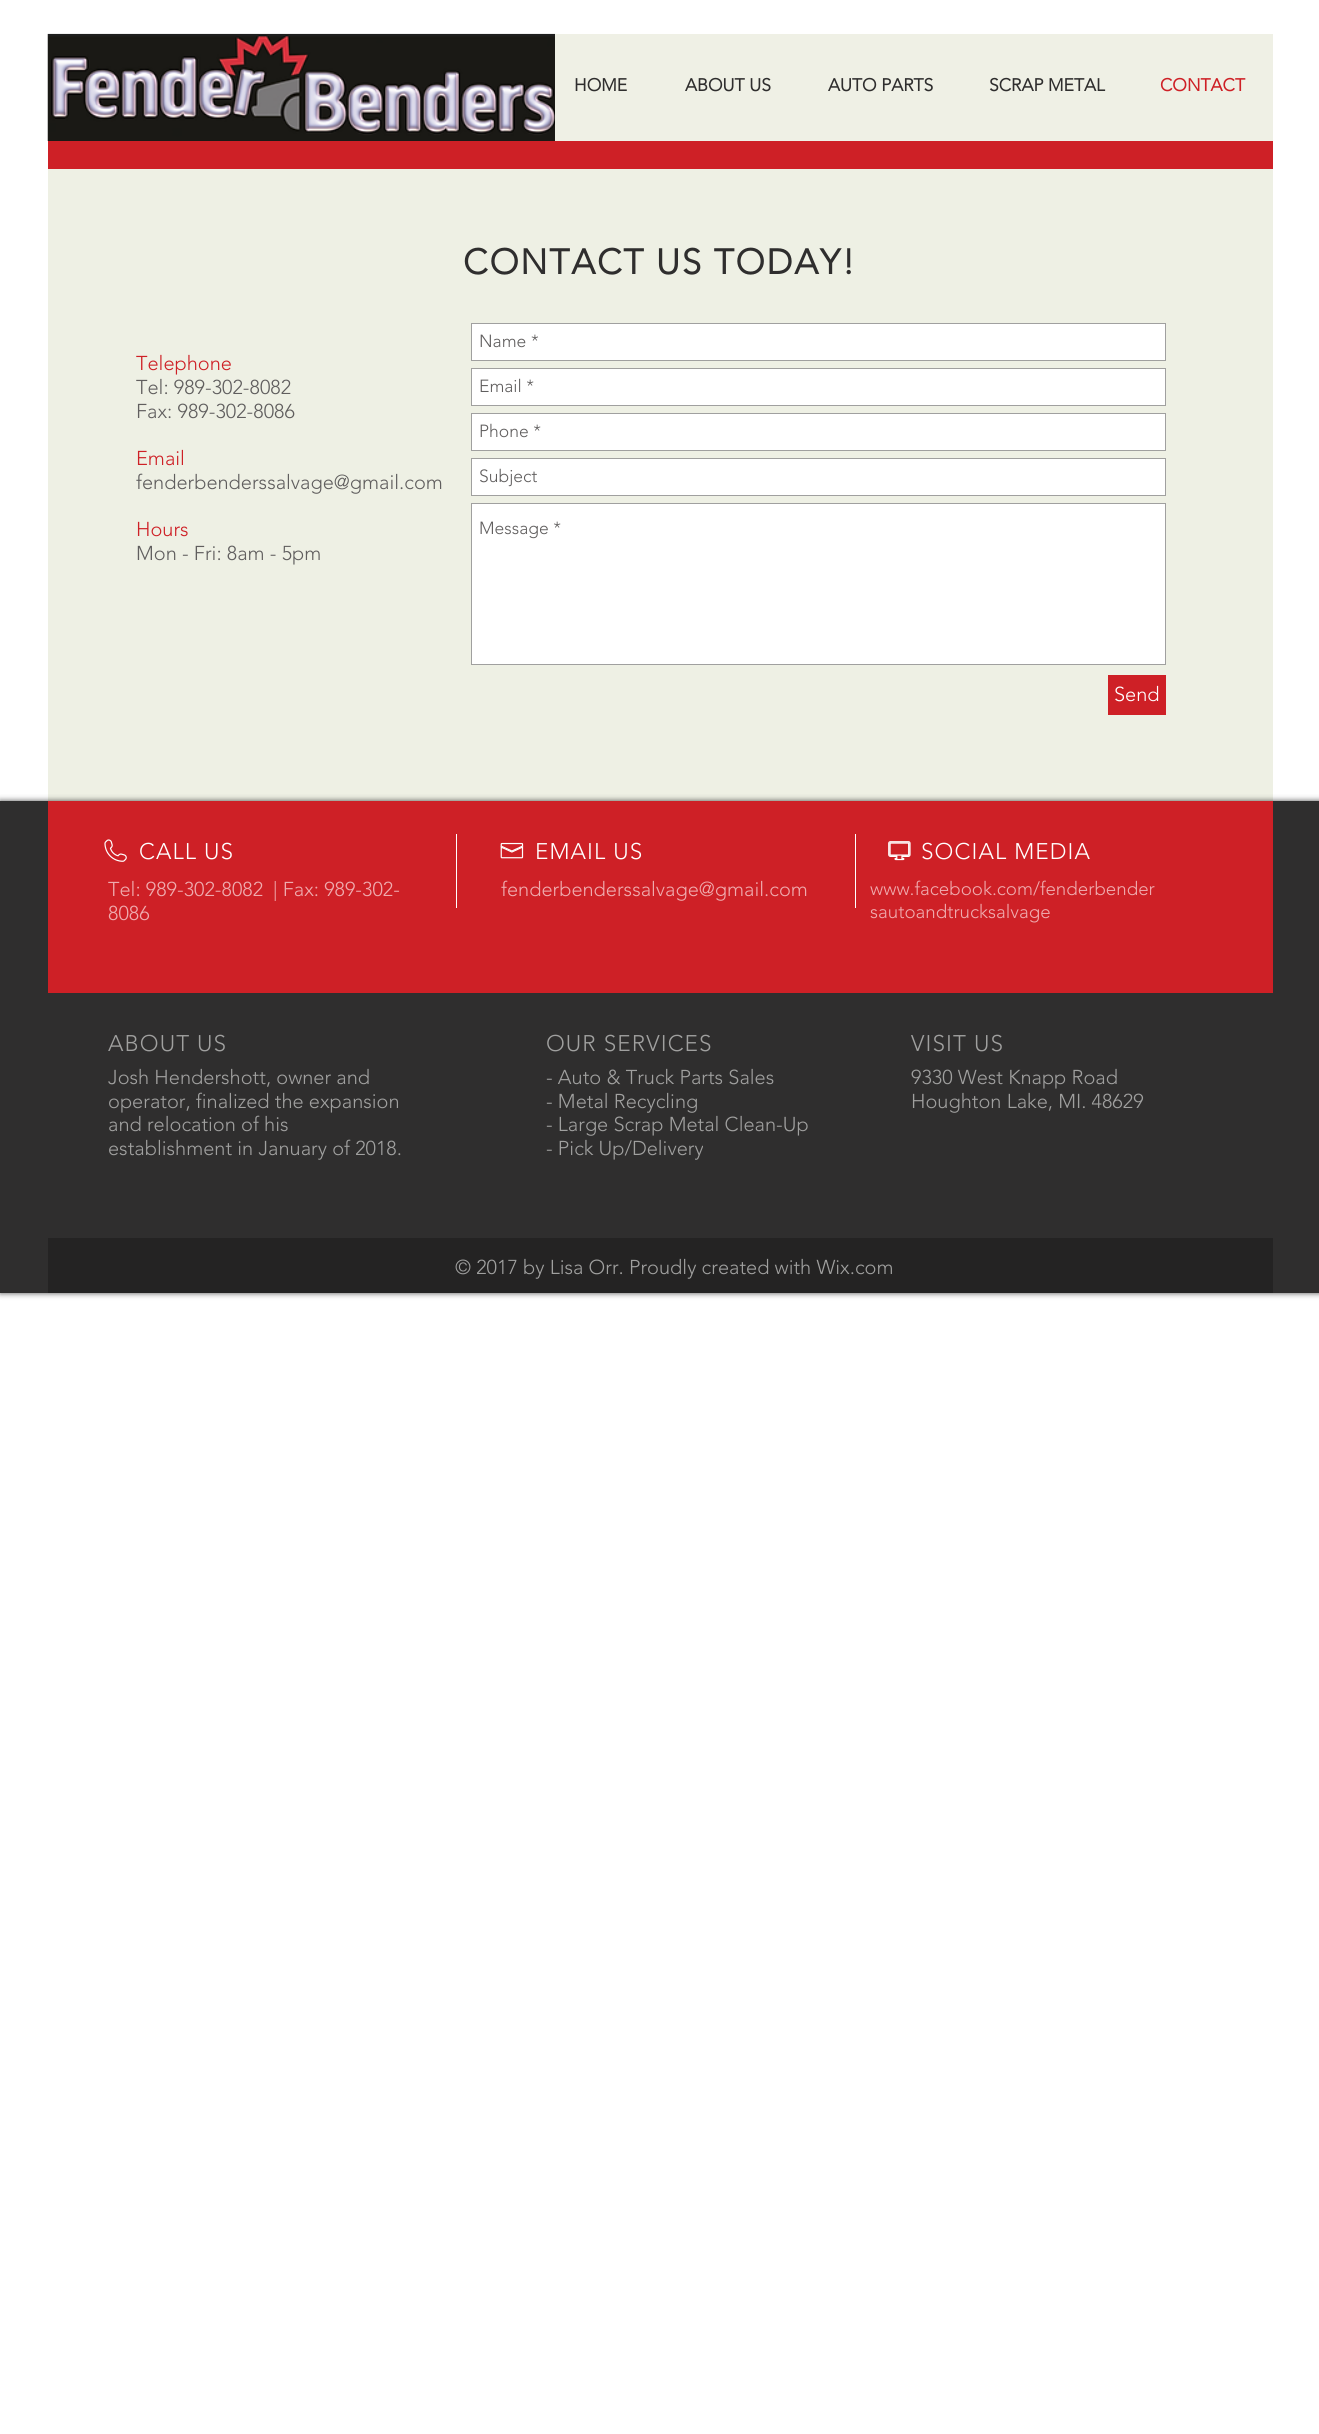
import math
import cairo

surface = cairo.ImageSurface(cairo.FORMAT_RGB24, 1319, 2434)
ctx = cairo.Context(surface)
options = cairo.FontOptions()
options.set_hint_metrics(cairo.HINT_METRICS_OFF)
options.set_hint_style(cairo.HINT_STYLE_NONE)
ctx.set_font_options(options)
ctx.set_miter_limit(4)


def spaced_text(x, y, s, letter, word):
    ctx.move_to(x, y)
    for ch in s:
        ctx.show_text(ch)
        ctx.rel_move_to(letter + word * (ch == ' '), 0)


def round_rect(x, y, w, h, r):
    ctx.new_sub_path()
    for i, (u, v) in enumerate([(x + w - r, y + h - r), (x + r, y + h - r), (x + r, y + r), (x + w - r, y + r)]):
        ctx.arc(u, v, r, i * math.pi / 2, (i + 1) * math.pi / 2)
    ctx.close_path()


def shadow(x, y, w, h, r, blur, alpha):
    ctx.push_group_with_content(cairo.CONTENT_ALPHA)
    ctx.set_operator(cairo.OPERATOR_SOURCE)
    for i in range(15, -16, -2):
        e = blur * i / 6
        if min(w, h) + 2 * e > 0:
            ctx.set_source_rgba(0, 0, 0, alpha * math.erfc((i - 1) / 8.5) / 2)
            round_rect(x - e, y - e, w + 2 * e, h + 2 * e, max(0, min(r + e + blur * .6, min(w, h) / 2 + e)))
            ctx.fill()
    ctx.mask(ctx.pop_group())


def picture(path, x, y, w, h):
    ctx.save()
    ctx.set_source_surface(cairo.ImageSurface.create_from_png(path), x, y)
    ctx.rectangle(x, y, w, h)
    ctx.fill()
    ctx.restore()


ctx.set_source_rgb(1, 1, 1)
ctx.paint()
ctx.set_source_rgb(0.937, 0.941, 0.898)
ctx.rectangle(555, 34, 718, 107)
ctx.fill()
picture("img1.png", 47, 33, 508, 108)
ctx.select_font_face("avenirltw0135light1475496", cairo.FONT_SLANT_NORMAL, cairo.FONT_WEIGHT_BOLD)
ctx.set_font_size(17.5)
ctx.set_source_rgb(0.184, 0.18, 0.18)
ctx.move_to(574, 91)
ctx.show_text("HOME")
ctx.move_to(685, 91)
ctx.show_text("ABOUT US")
ctx.move_to(828, 91)
ctx.show_text("AUTO PARTS")
ctx.move_to(989, 91)
ctx.show_text("SCRAP METAL")
ctx.set_source_rgb(0.808, 0.125, 0.149)
ctx.move_to(1160, 91)
ctx.show_text("CONTACT")
ctx.rectangle(48, 141, 1225, 28)
ctx.fill()
ctx.set_source_rgb(0.933, 0.941, 0.894)
ctx.rectangle(48, 169, 1225, 632)
ctx.fill()
ctx.set_font_size(35)
ctx.set_source_rgb(0.184, 0.18, 0.18)
spaced_text(463, 274, "CONTACT US TODAY!", 1.75, 0)
ctx.select_font_face("avenirltw0135light1475496 Light")
ctx.set_font_size(20)
ctx.set_source_rgb(0.808, 0.125, 0.149)
ctx.move_to(136, 370)
ctx.show_text("Telephone")
ctx.set_source_rgb(0.376, 0.369, 0.369)
ctx.move_to(136, 394)
ctx.show_text("Tel: 989-302-8082")
ctx.move_to(136, 418)
ctx.show_text("Fax: 989-302-8086")
ctx.set_source_rgb(0.808, 0.125, 0.149)
ctx.move_to(136, 465)
ctx.show_text("Email")
ctx.set_source_rgb(0.376, 0.369, 0.369)
ctx.move_to(136, 489)
ctx.show_text("fenderbenderssalvage@gmail.com")
ctx.set_source_rgb(0.808, 0.125, 0.149)
ctx.move_to(136, 536)
ctx.show_text("Hours")
ctx.set_source_rgb(0.376, 0.369, 0.369)
ctx.move_to(136, 560)
ctx.show_text("Mon - Fri: 8am - 5pm")
ctx.set_source_rgb(1, 1, 1)
ctx.rectangle(471.5, 323.5, 694, 37)
ctx.fill_preserve()
ctx.set_source_rgb(0.627, 0.627, 0.624)
ctx.set_line_width(1)
ctx.stroke()
ctx.set_font_size(17.5)
ctx.set_source_rgb(0.376, 0.369, 0.369)
ctx.move_to(479, 347)
ctx.show_text("Name *")
ctx.set_source_rgb(1, 1, 1)
ctx.rectangle(471.5, 368.5, 694, 37)
ctx.fill_preserve()
ctx.set_source_rgb(0.627, 0.627, 0.624)
ctx.stroke()
ctx.set_source_rgb(0.376, 0.369, 0.369)
ctx.move_to(479, 392)
ctx.show_text("Email *")
ctx.set_source_rgb(1, 1, 1)
ctx.rectangle(471.5, 413.5, 694, 37)
ctx.fill_preserve()
ctx.set_source_rgb(0.627, 0.627, 0.624)
ctx.stroke()
ctx.set_source_rgb(0.376, 0.369, 0.369)
ctx.move_to(479, 437)
ctx.show_text("Phone *")
ctx.set_source_rgb(1, 1, 1)
ctx.rectangle(471.5, 458.5, 694, 37)
ctx.fill_preserve()
ctx.set_source_rgb(0.627, 0.627, 0.624)
ctx.stroke()
ctx.set_source_rgb(0.376, 0.369, 0.369)
ctx.move_to(479, 482)
ctx.show_text("Subject")
ctx.set_source_rgb(1, 1, 1)
ctx.rectangle(471.5, 503.5, 694, 161)
ctx.fill_preserve()
ctx.set_source_rgb(0.627, 0.627, 0.624)
ctx.stroke()
ctx.set_source_rgb(0.376, 0.369, 0.369)
ctx.move_to(479, 534)
ctx.show_text("Message *")
ctx.set_source_rgb(0.808, 0.125, 0.149)
ctx.rectangle(1108, 675, 58, 40)
ctx.fill()
ctx.set_font_size(20)
ctx.set_source_rgb(1, 1, 1)
ctx.move_to(1114, 701)
ctx.show_text("Send")
ctx.set_source_rgb(0, 0, 0)
shadow(0, 801, 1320, 492, 0, 3, 0.7)
ctx.set_source_rgb(0.184, 0.18, 0.18)
ctx.rectangle(0, 801, 1319, 492)
ctx.fill()
ctx.set_source_rgb(0.808, 0.125, 0.149)
ctx.rectangle(48, 801, 1225, 192)
ctx.fill()
picture("img2.png", 104, 839, 23, 23)
ctx.set_font_size(22.5)
ctx.set_source_rgb(1, 1, 1)
spaced_text(139, 859, "CALL US", 1.1, 0)
ctx.rectangle(456, 834, 1, 74)
ctx.fill()
picture("img3.png", 500, 842, 24, 17)
spaced_text(535, 859, "EMAIL US", 1.1, 0)
ctx.rectangle(855, 834, 1, 74)
ctx.fill()
picture("img4.png", 888, 841, 23, 20)
spaced_text(921, 859, "SOCIAL MEDIA", 1.1, 0)
ctx.set_font_size(20)
ctx.set_source_rgb(0.937, 0.671, 0.682)
ctx.move_to(108, 896)
ctx.show_text("Tel: 989-302-8082")
ctx.move_to(273, 896)
ctx.show_text("| Fax: 989-302-")
ctx.move_to(108, 920)
ctx.show_text("8086")
ctx.move_to(501, 896)
ctx.show_text("fenderbenderssalvage@gmail.com")
ctx.set_font_size(18.75)
ctx.move_to(870, 895)
ctx.show_text("www.facebook.com/fenderbender")
ctx.move_to(870, 918)
ctx.show_text("sautoandtrucksalvage")
ctx.set_font_size(22.5)
ctx.set_source_rgb(0.627, 0.627, 0.624)
spaced_text(108, 1051, "ABOUT US", 1.1, 0)
spaced_text(546, 1051, "OUR SERVICES", 1.1, 0)
spaced_text(911, 1051, "VISIT US", 1.1, 0)
ctx.set_font_size(20)
ctx.move_to(108, 1084)
ctx.show_text("Josh Hendershott, owner and")
ctx.move_to(108, 1108)
ctx.show_text("operator, finalized the expansion")
ctx.move_to(108, 1131)
ctx.show_text("and relocation of his")
ctx.move_to(108, 1155)
ctx.show_text("establishment in January of 2018.")
ctx.move_to(546, 1084)
ctx.show_text("- Auto & Truck Parts Sales")
ctx.move_to(546, 1108)
ctx.show_text("- Metal Recycling")
ctx.move_to(546, 1131)
ctx.show_text("- Large Scrap Metal Clean-Up")
ctx.move_to(546, 1155)
ctx.show_text("- Pick Up/Delivery")
ctx.move_to(911, 1084)
ctx.show_text("9330 West Knapp Road")
ctx.move_to(911, 1108)
ctx.show_text("Houghton Lake, MI. 48629")
ctx.set_source_rgb(0.141, 0.137, 0.137)
ctx.rectangle(48, 1238, 1225, 55)
ctx.fill()
ctx.set_source_rgb(0.627, 0.627, 0.624)
ctx.move_to(455, 1274)
ctx.show_text("© 2017 by Lisa Orr. Proudly created with Wix.com")
surface.write_to_png("page.png")
